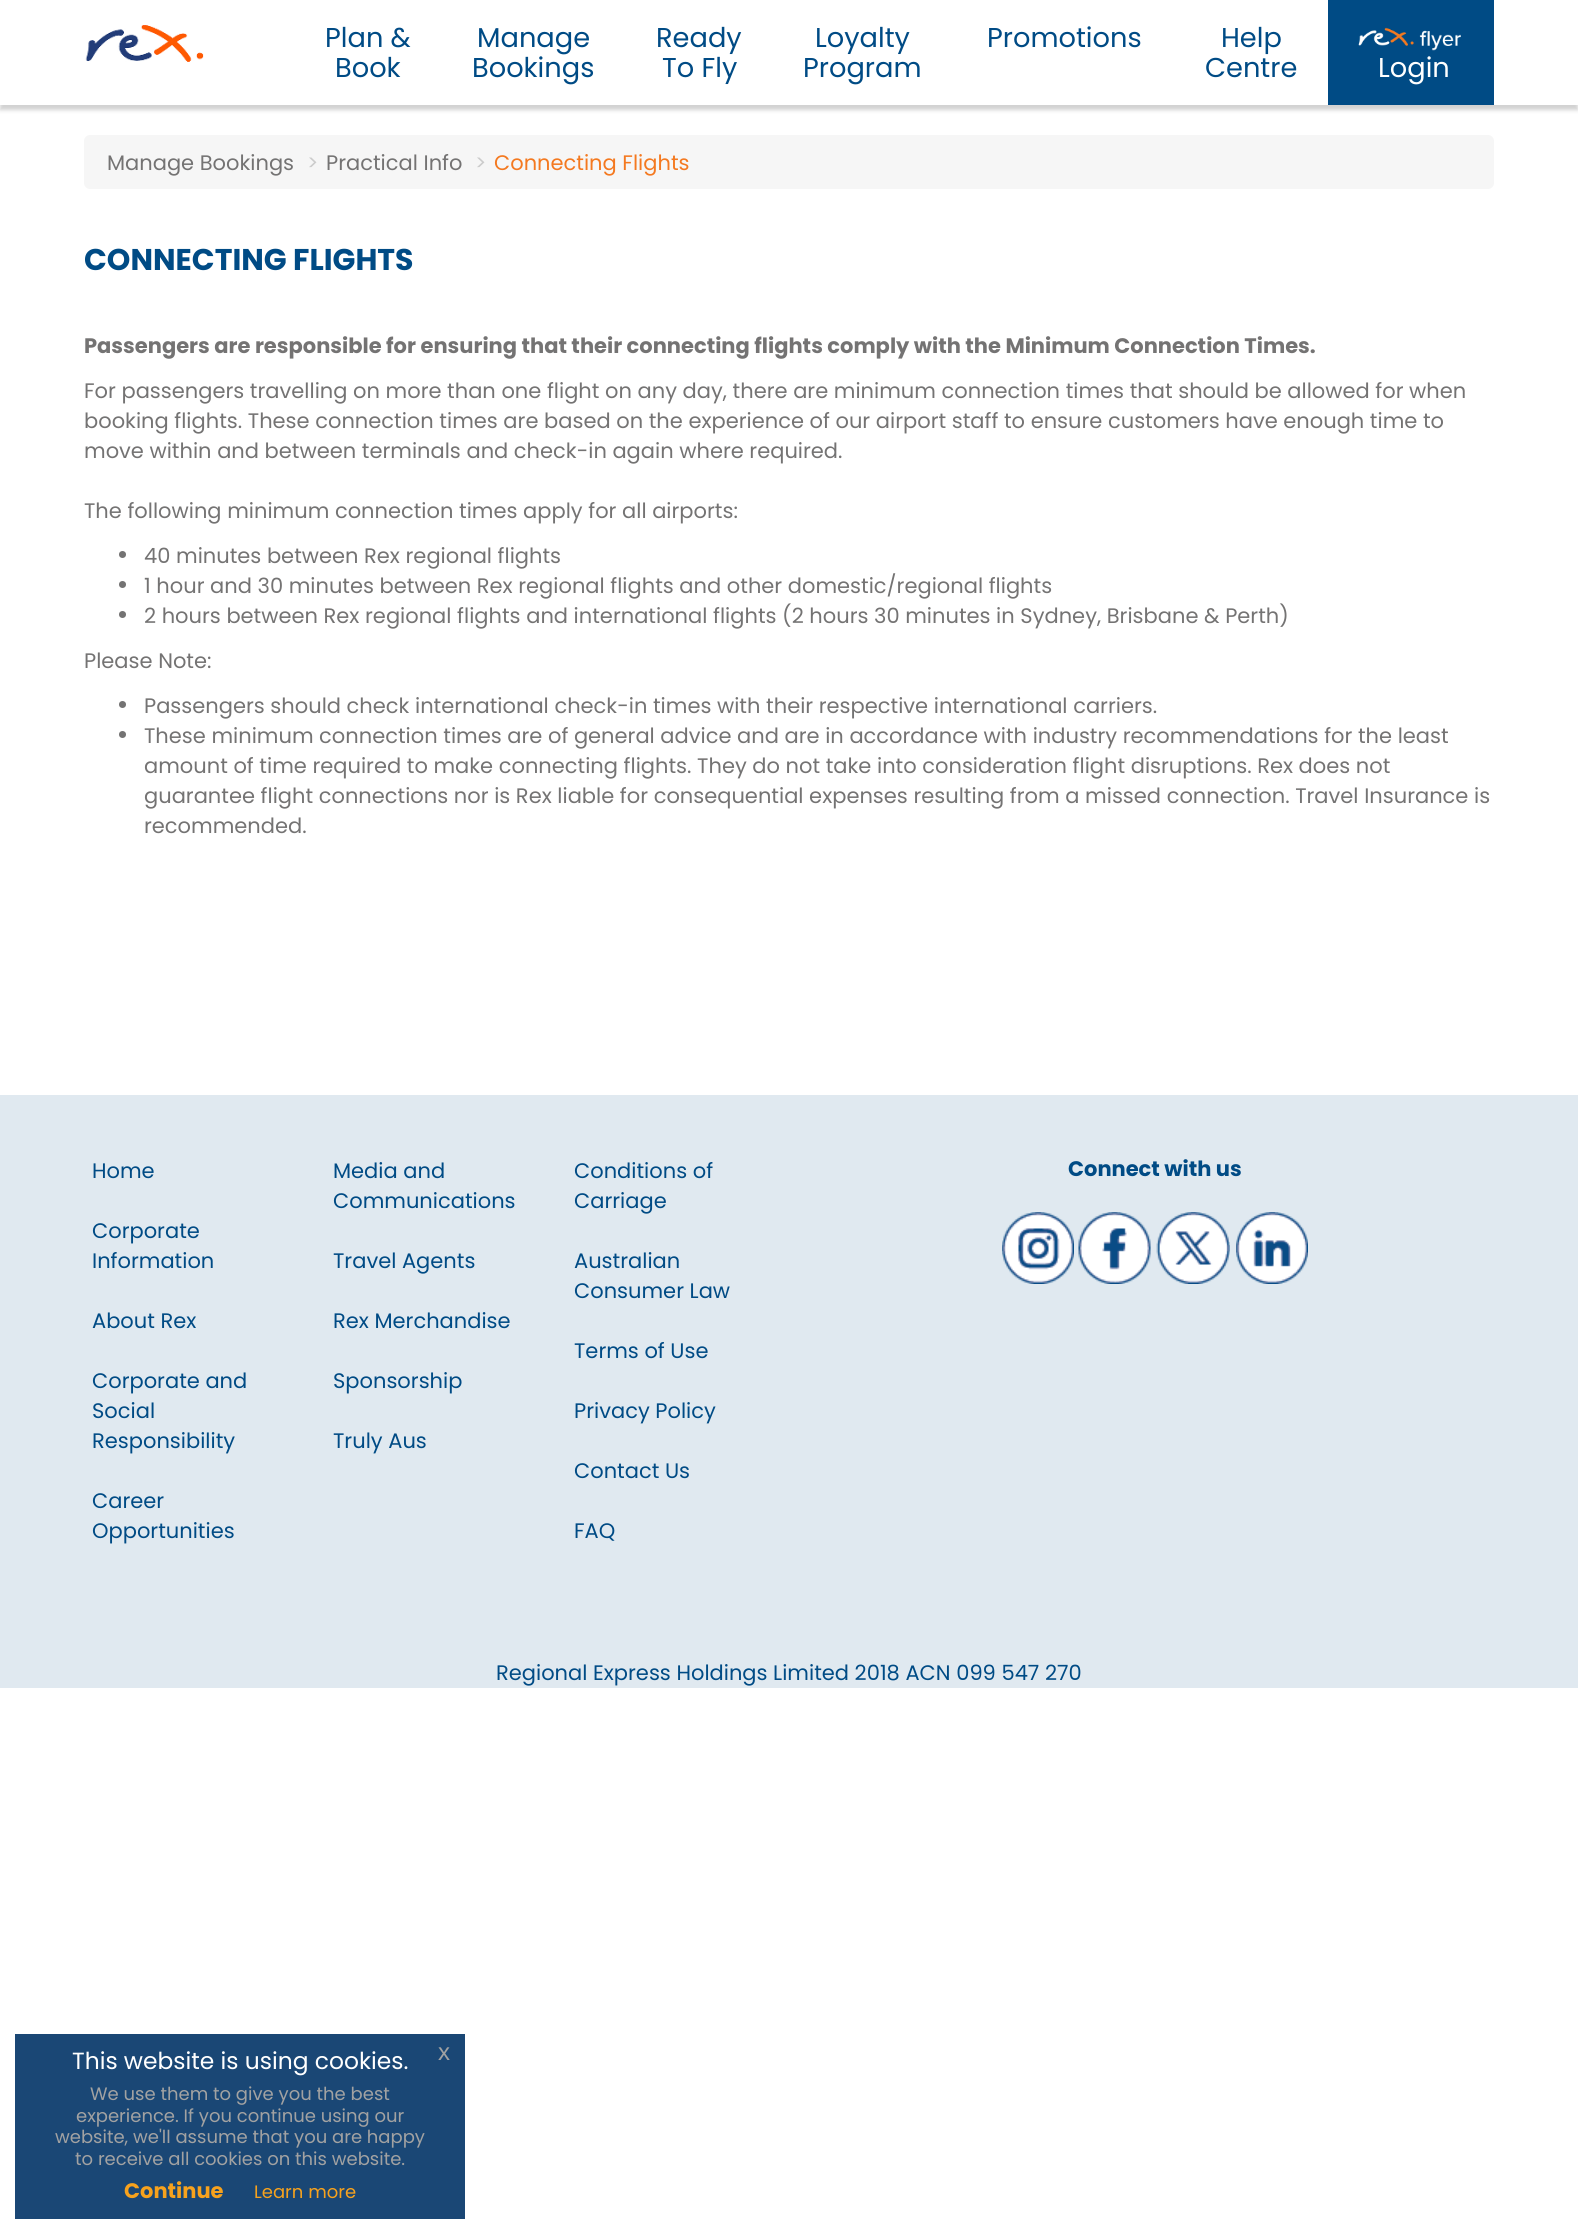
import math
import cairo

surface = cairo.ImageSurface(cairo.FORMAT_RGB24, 1578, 2233)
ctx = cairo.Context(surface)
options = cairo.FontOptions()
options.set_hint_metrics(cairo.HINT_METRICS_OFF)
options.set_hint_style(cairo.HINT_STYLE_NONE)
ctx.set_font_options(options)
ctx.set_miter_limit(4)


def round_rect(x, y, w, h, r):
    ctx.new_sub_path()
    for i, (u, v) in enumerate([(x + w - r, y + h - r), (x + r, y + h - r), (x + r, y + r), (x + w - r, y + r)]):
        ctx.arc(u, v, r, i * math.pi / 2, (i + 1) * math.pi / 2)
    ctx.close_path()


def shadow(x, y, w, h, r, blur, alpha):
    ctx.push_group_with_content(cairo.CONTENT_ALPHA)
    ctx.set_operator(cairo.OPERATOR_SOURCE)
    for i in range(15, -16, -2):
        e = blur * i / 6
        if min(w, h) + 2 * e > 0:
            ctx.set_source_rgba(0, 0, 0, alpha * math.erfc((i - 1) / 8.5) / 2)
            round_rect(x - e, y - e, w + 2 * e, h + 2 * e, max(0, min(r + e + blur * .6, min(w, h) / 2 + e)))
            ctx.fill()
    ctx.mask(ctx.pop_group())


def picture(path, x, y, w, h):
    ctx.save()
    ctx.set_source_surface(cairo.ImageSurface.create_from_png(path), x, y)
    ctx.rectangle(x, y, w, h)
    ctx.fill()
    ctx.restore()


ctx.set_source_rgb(1, 1, 1)
ctx.paint()
ctx.save()
ctx.rectangle(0, 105, 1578, 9)
ctx.clip()
ctx.set_source_rgb(0.82, 0.82, 0.82)
shadow(0, 5, 1578, 105, 0, 2, 1)
ctx.restore()
picture("img1.png", 85, 25, 119, 37)
ctx.select_font_face("Poppins")
ctx.set_font_size(27.25)
ctx.set_source_rgb(0, 0.294, 0.522)
ctx.move_to(325, 47)
ctx.show_text("Plan &")
ctx.move_to(335, 77)
ctx.show_text("Book")
ctx.move_to(477, 47)
ctx.show_text("Manage")
ctx.move_to(472, 77)
ctx.show_text("Bookings")
ctx.move_to(656, 47)
ctx.show_text("Ready")
ctx.move_to(662, 77)
ctx.show_text("To Fly")
ctx.move_to(815, 47)
ctx.show_text("Loyalty")
ctx.move_to(803, 77)
ctx.show_text("Program")
ctx.move_to(987, 47)
ctx.show_text("Promotions")
ctx.move_to(1221, 47)
ctx.show_text("Help")
ctx.move_to(1205, 77)
ctx.show_text("Centre")
ctx.rectangle(1328, 0, 166, 105)
ctx.fill()
picture("img2.png", 1358, 27, 103, 24)
ctx.set_source_rgb(1, 1, 1)
ctx.move_to(1378, 77)
ctx.show_text("Login")
ctx.set_source_rgb(0.961, 0.961, 0.961)
round_rect(84, 135, 1410, 54, 6)
ctx.fill()
ctx.set_font_size(21)
ctx.set_source_rgb(0.455, 0.451, 0.451)
ctx.move_to(107, 170)
ctx.show_text("Manage Bookings")
ctx.set_source_rgb(0.8, 0.8, 0.8)
ctx.move_to(307, 170)
ctx.show_text(">")
ctx.set_source_rgb(0.455, 0.451, 0.451)
ctx.move_to(326, 170)
ctx.show_text("Practical Info")
ctx.set_source_rgb(0.8, 0.8, 0.8)
ctx.move_to(475, 170)
ctx.show_text(">")
ctx.set_source_rgb(0.957, 0.475, 0.125)
ctx.move_to(494, 170)
ctx.show_text("Connecting Flights")
ctx.select_font_face("Poppins", cairo.FONT_SLANT_NORMAL, cairo.FONT_WEIGHT_BOLD)
ctx.set_font_size(30)
ctx.set_source_rgb(0, 0.294, 0.522)
ctx.move_to(84, 270)
ctx.show_text("CONNECTING FLIGHTS")
ctx.set_font_size(21)
ctx.set_source_rgb(0.455, 0.451, 0.451)
ctx.move_to(84, 353)
ctx.show_text("Passengers are responsible for ensuring that their connecting flights comply with the Minimum Connection Times.")
ctx.select_font_face("Poppins")
ctx.move_to(84, 398)
ctx.show_text("For passengers travelling on more than one flight on any day, there are minimum connection times that should be allowed for when")
ctx.move_to(84, 428)
ctx.show_text("booking flights. These connection times are based on the experience of our airport staff to ensure customers have enough time to")
ctx.move_to(84, 458)
ctx.show_text("move within and between terminals and check-in again where required.")
ctx.move_to(84, 518)
ctx.show_text("The following minimum connection times apply for all airports:")
ctx.new_path()
ctx.arc(122.5, 554.5, 3.5, 0, 2 * math.pi)
ctx.fill()
ctx.move_to(144, 563)
ctx.show_text("40 minutes between Rex regional flights")
ctx.new_path()
ctx.arc(122.5, 584.5, 3.5, 0, 2 * math.pi)
ctx.fill()
ctx.move_to(144, 593)
ctx.show_text("1 hour and 30 minutes between Rex regional flights and other domestic/regional flights")
ctx.new_path()
ctx.arc(122.5, 614.5, 3.5, 0, 2 * math.pi)
ctx.fill()
ctx.move_to(144, 623)
ctx.show_text("2 hours between Rex regional flights and international flights (2 hours 30 minutes in Sydney, Brisbane & Perth)")
ctx.move_to(84, 668)
ctx.show_text("Please Note:")
ctx.new_path()
ctx.arc(122.5, 704.5, 3.5, 0, 2 * math.pi)
ctx.fill()
ctx.move_to(144, 713)
ctx.show_text("Passengers should check international check-in times with their respective international carriers.")
ctx.new_path()
ctx.arc(122.5, 734.5, 3.5, 0, 2 * math.pi)
ctx.fill()
ctx.move_to(144, 743)
ctx.show_text("These minimum connection times are of general advice and are in accordance with industry recommendations for the least")
ctx.move_to(144, 773)
ctx.show_text("amount of time required to make connecting flights. They do not take into consideration flight disruptions. Rex does not")
ctx.move_to(144, 803)
ctx.show_text("guarantee flight connections nor is Rex liable for consequential expenses resulting from a missed connection. Travel Insurance is")
ctx.move_to(144, 833)
ctx.show_text("recommended.")
ctx.set_source_rgb(0.878, 0.914, 0.941)
ctx.rectangle(0, 1095, 1578, 593)
ctx.fill()
ctx.set_source_rgb(0, 0.294, 0.522)
ctx.move_to(92, 1178)
ctx.show_text("Home")
ctx.move_to(92, 1238)
ctx.show_text("Corporate")
ctx.move_to(92, 1268)
ctx.show_text("Information")
ctx.move_to(92, 1328)
ctx.show_text("About Rex")
ctx.move_to(92, 1388)
ctx.show_text("Corporate and")
ctx.move_to(92, 1418)
ctx.show_text("Social")
ctx.move_to(92, 1448)
ctx.show_text("Responsibility")
ctx.move_to(92, 1508)
ctx.show_text("Career")
ctx.move_to(92, 1538)
ctx.show_text("Opportunities")
ctx.move_to(333, 1178)
ctx.show_text("Media and")
ctx.move_to(333, 1208)
ctx.show_text("Communications")
ctx.move_to(333, 1268)
ctx.show_text("Travel Agents")
ctx.move_to(333, 1328)
ctx.show_text("Rex Merchandise")
ctx.move_to(333, 1388)
ctx.show_text("Sponsorship")
ctx.move_to(333, 1448)
ctx.show_text("Truly Aus")
ctx.move_to(574, 1178)
ctx.show_text("Conditions of")
ctx.move_to(574, 1208)
ctx.show_text("Carriage")
ctx.move_to(574, 1268)
ctx.show_text("Australian")
ctx.move_to(574, 1298)
ctx.show_text("Consumer Law")
ctx.move_to(574, 1358)
ctx.show_text("Terms of Use")
ctx.move_to(574, 1418)
ctx.show_text("Privacy Policy")
ctx.move_to(574, 1478)
ctx.show_text("Contact Us")
ctx.move_to(574, 1538)
ctx.show_text("FAQ")
ctx.select_font_face("Poppins", cairo.FONT_SLANT_NORMAL, cairo.FONT_WEIGHT_BOLD)
ctx.move_to(1068, 1176)
ctx.show_text("Connect with us")
picture("img3.png", 1002, 1212, 72, 72)
picture("img4.png", 1078, 1212, 73, 72)
picture("img5.png", 1156, 1212, 74, 72)
picture("img6.png", 1236, 1212, 72, 72)
ctx.select_font_face("Poppins")
ctx.move_to(496, 1680)
ctx.show_text("Regional Express Holdings Limited 2018 ACN 099 547 270")
ctx.set_source_rgb(0.102, 0.278, 0.459)
ctx.rectangle(15, 2034, 450, 185)
ctx.fill()
ctx.set_font_size(23.4)
ctx.set_source_rgb(1, 1, 1)
ctx.move_to(72, 2069)
ctx.show_text("This website is using cookies.")
ctx.select_font_face("Liberation Sans")
ctx.set_font_size(24)
ctx.set_source_rgb(0.635, 0.635, 0.635)
ctx.move_to(438, 2060)
ctx.show_text("x")
ctx.select_font_face("Poppins")
ctx.set_font_size(18)
ctx.move_to(90, 2100)
ctx.show_text("We use them to give you the best")
ctx.move_to(76, 2122)
ctx.show_text("experience. If you continue using our")
ctx.move_to(55, 2143)
ctx.show_text("website, we'll assume that you are happy")
ctx.move_to(75, 2165)
ctx.show_text("to receive all cookies on this website.")
ctx.select_font_face("Poppins", cairo.FONT_SLANT_NORMAL, cairo.FONT_WEIGHT_BOLD)
ctx.set_font_size(21)
ctx.set_source_rgb(0.965, 0.635, 0.114)
ctx.move_to(124, 2198)
ctx.show_text("Continue")
ctx.select_font_face("Poppins")
ctx.set_font_size(18)
ctx.move_to(254, 2198)
ctx.show_text("Learn more")
surface.write_to_png("page.png")
